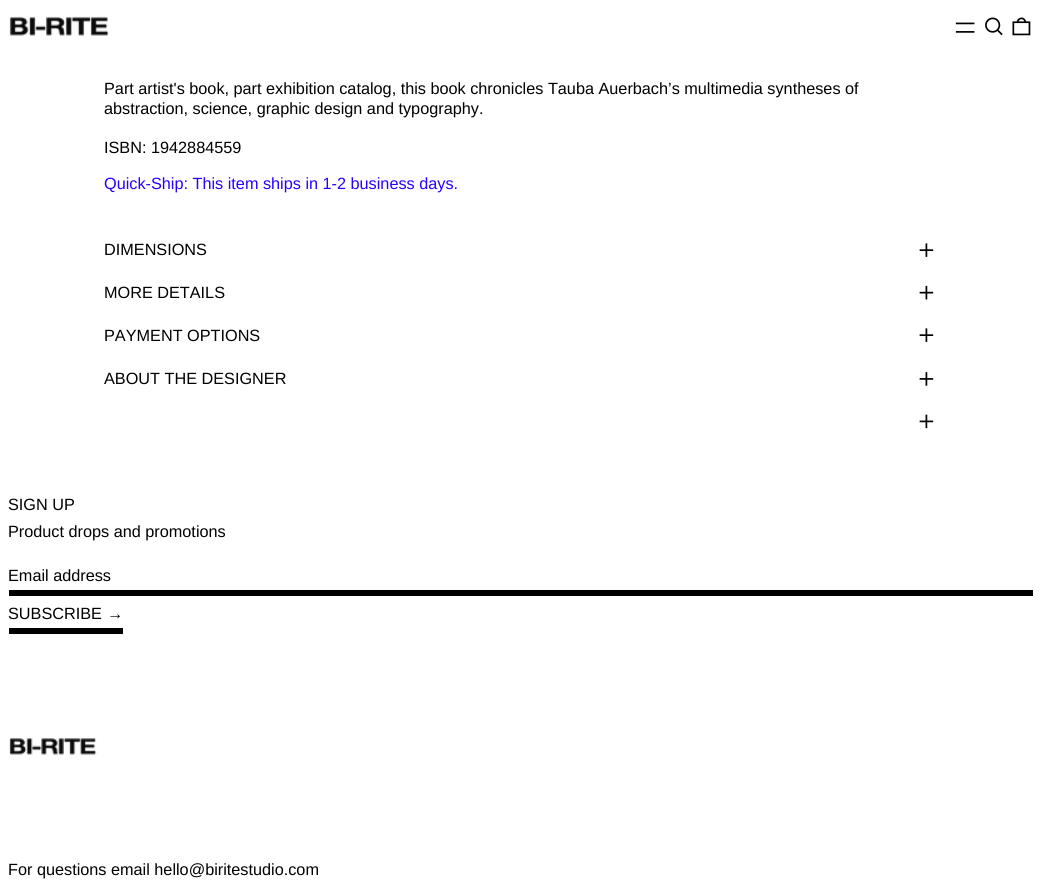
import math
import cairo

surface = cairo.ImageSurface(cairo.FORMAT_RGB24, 1040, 881)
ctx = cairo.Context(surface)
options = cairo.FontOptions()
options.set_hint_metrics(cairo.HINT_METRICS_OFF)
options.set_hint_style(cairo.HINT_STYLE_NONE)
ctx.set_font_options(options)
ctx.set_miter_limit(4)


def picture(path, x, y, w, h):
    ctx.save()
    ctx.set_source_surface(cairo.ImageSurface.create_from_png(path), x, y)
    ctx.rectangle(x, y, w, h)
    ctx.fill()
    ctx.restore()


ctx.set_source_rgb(1, 1, 1)
ctx.paint()
picture("img1.png", 9, 16, 100, 20)
picture("img2.png", 955, 22, 20, 11)
picture("img3.png", 985, 17, 18, 19)
picture("img4.png", 1012, 17, 19, 19)
ctx.select_font_face("Arimo")
ctx.set_font_size(16.25)
ctx.set_source_rgb(0, 0, 0)
ctx.move_to(104, 94)
ctx.show_text("Part artist's book, part exhibition catalog, this book chronicles Tauba Auerbach’s multimedia syntheses of")
ctx.move_to(104, 114)
ctx.show_text("abstraction, science, graphic design and typography.")
ctx.move_to(104, 153)
ctx.show_text("ISBN: 1942884559")
ctx.set_source_rgb(0.169, 0, 1)
ctx.move_to(104, 189)
ctx.show_text("Quick-Ship: This item ships in 1-2 business days.")
ctx.set_source_rgb(0, 0, 0)
ctx.move_to(104, 255)
ctx.show_text("DIMENSIONS")
picture("img5.png", 919, 243, 15, 14)
ctx.move_to(104, 298)
ctx.show_text("MORE DETAILS")
picture("img6.png", 919, 285, 15, 15)
ctx.move_to(104, 341)
ctx.show_text("PAYMENT OPTIONS")
picture("img5.png", 919, 328, 15, 14)
ctx.move_to(104, 384)
ctx.show_text("ABOUT THE DESIGNER")
picture("img7.png", 919, 372, 15, 14)
picture("img8.png", 919, 414, 15, 15)
ctx.move_to(8, 510)
ctx.show_text("SIGN UP")
ctx.move_to(8, 537)
ctx.show_text("Product drops and promotions")
ctx.rectangle(9, 590, 1024, 6)
ctx.fill()
ctx.move_to(8, 581)
ctx.show_text("Email address")
ctx.rectangle(9, 628, 114, 6)
ctx.fill()
ctx.move_to(8, 619)
ctx.show_text("SUBSCRIBE")
ctx.select_font_face("Liberation Sans")
ctx.move_to(107, 619)
ctx.show_text("→")
picture("img9.png", 9, 738, 88, 17)
ctx.select_font_face("Arimo")
ctx.move_to(8, 875)
ctx.show_text("For questions email hello@biritestudio.com")
surface.write_to_png("page.png")
